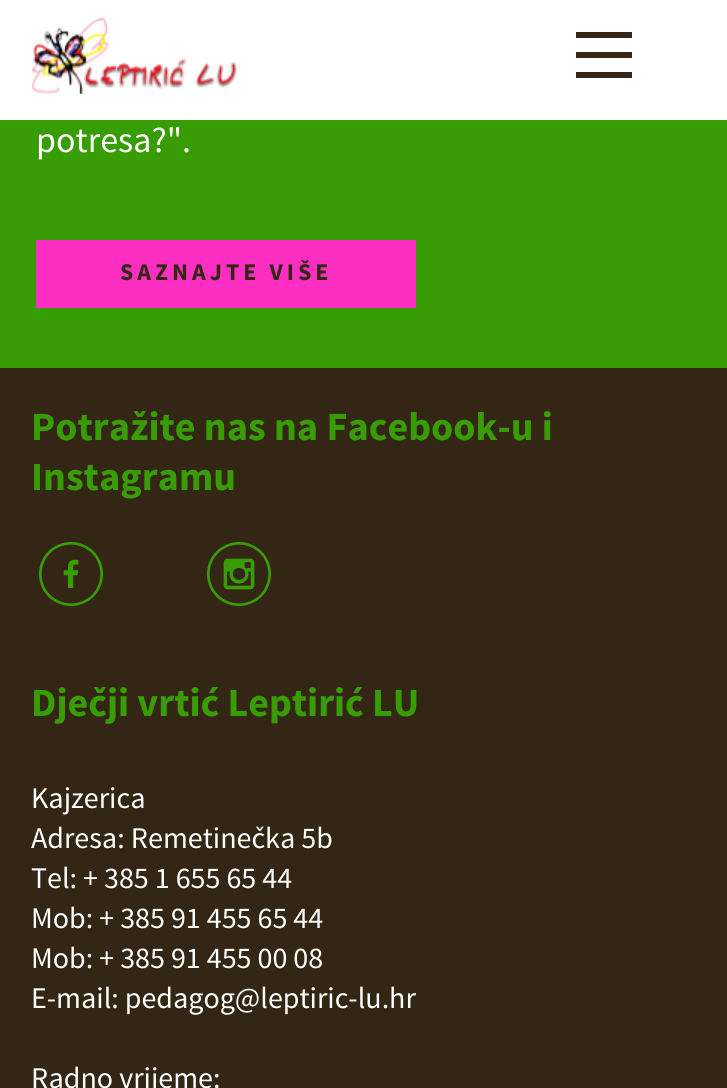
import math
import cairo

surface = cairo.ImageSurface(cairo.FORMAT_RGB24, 727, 1088)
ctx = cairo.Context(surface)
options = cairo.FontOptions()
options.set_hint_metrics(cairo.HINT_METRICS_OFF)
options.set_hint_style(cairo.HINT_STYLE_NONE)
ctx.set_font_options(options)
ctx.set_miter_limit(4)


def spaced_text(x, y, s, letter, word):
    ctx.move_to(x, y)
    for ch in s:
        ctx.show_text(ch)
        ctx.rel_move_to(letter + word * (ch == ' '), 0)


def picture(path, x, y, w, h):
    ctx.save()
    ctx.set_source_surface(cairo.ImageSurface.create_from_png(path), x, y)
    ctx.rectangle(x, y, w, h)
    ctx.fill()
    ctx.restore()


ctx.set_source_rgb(0.2, 0.149, 0.082)
ctx.paint()
ctx.set_source_rgb(1, 1, 1)
ctx.rectangle(0, 0, 727, 120)
ctx.fill()
picture("img1.png", 32, 18, 206, 76)
ctx.set_source_rgb(0.2, 0.149, 0.082)
ctx.rectangle(576, 32, 56, 6)
ctx.fill()
ctx.rectangle(576, 52, 56, 6)
ctx.fill()
ctx.rectangle(576, 72, 56, 6)
ctx.fill()
ctx.set_source_rgb(0.22, 0.612, 0.016)
ctx.rectangle(0, 120, 727, 248)
ctx.fill()
ctx.select_font_face("Source Sans Pro")
ctx.set_font_size(36)
ctx.set_source_rgb(1, 1, 1)
ctx.move_to(36, 152)
ctx.show_text("potresa?\".")
ctx.set_source_rgb(0.992, 0.184, 0.761)
ctx.rectangle(36, 240, 380, 68)
ctx.fill()
ctx.select_font_face("Source Sans Pro", cairo.FONT_SLANT_NORMAL, cairo.FONT_WEIGHT_BOLD)
ctx.set_font_size(24)
ctx.set_source_rgb(0.2, 0.149, 0.082)
spaced_text(120, 280, "SAZNAJTE VIŠE", 4, 0)
ctx.set_font_size(40)
ctx.set_source_rgb(0.22, 0.612, 0.016)
ctx.move_to(31, 440)
ctx.show_text("Potražite nas na Facebook-u i")
ctx.move_to(31, 490)
ctx.show_text("Instagramu")
ctx.select_font_face("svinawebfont")
ctx.set_font_size(80)
ctx.move_to(31, 614)
ctx.show_text("k")
ctx.move_to(199, 614)
ctx.show_text("o")
ctx.select_font_face("Source Sans Pro", cairo.FONT_SLANT_NORMAL, cairo.FONT_WEIGHT_BOLD)
ctx.set_font_size(40)
ctx.move_to(31, 716)
ctx.show_text("Dječji vrtić Leptirić LU")
ctx.select_font_face("Source Sans Pro")
ctx.set_font_size(30)
ctx.set_source_rgb(1, 1, 1)
ctx.move_to(31, 808)
ctx.show_text("Kajzerica")
ctx.move_to(31, 848)
ctx.show_text("Adresa: Remetinečka 5b")
ctx.move_to(31, 888)
ctx.show_text("Tel: + 385 1 655 65 44")
ctx.move_to(31, 928)
ctx.show_text("Mob: + 385 91 455 65 44")
ctx.move_to(31, 968)
ctx.show_text("Mob: + 385 91 455 00 08")
ctx.move_to(31, 1008)
ctx.show_text("E-mail: pedagog@leptiric-lu.hr")
ctx.move_to(31, 1088)
ctx.show_text("Radno vrijeme:")
surface.write_to_png("page.png")
